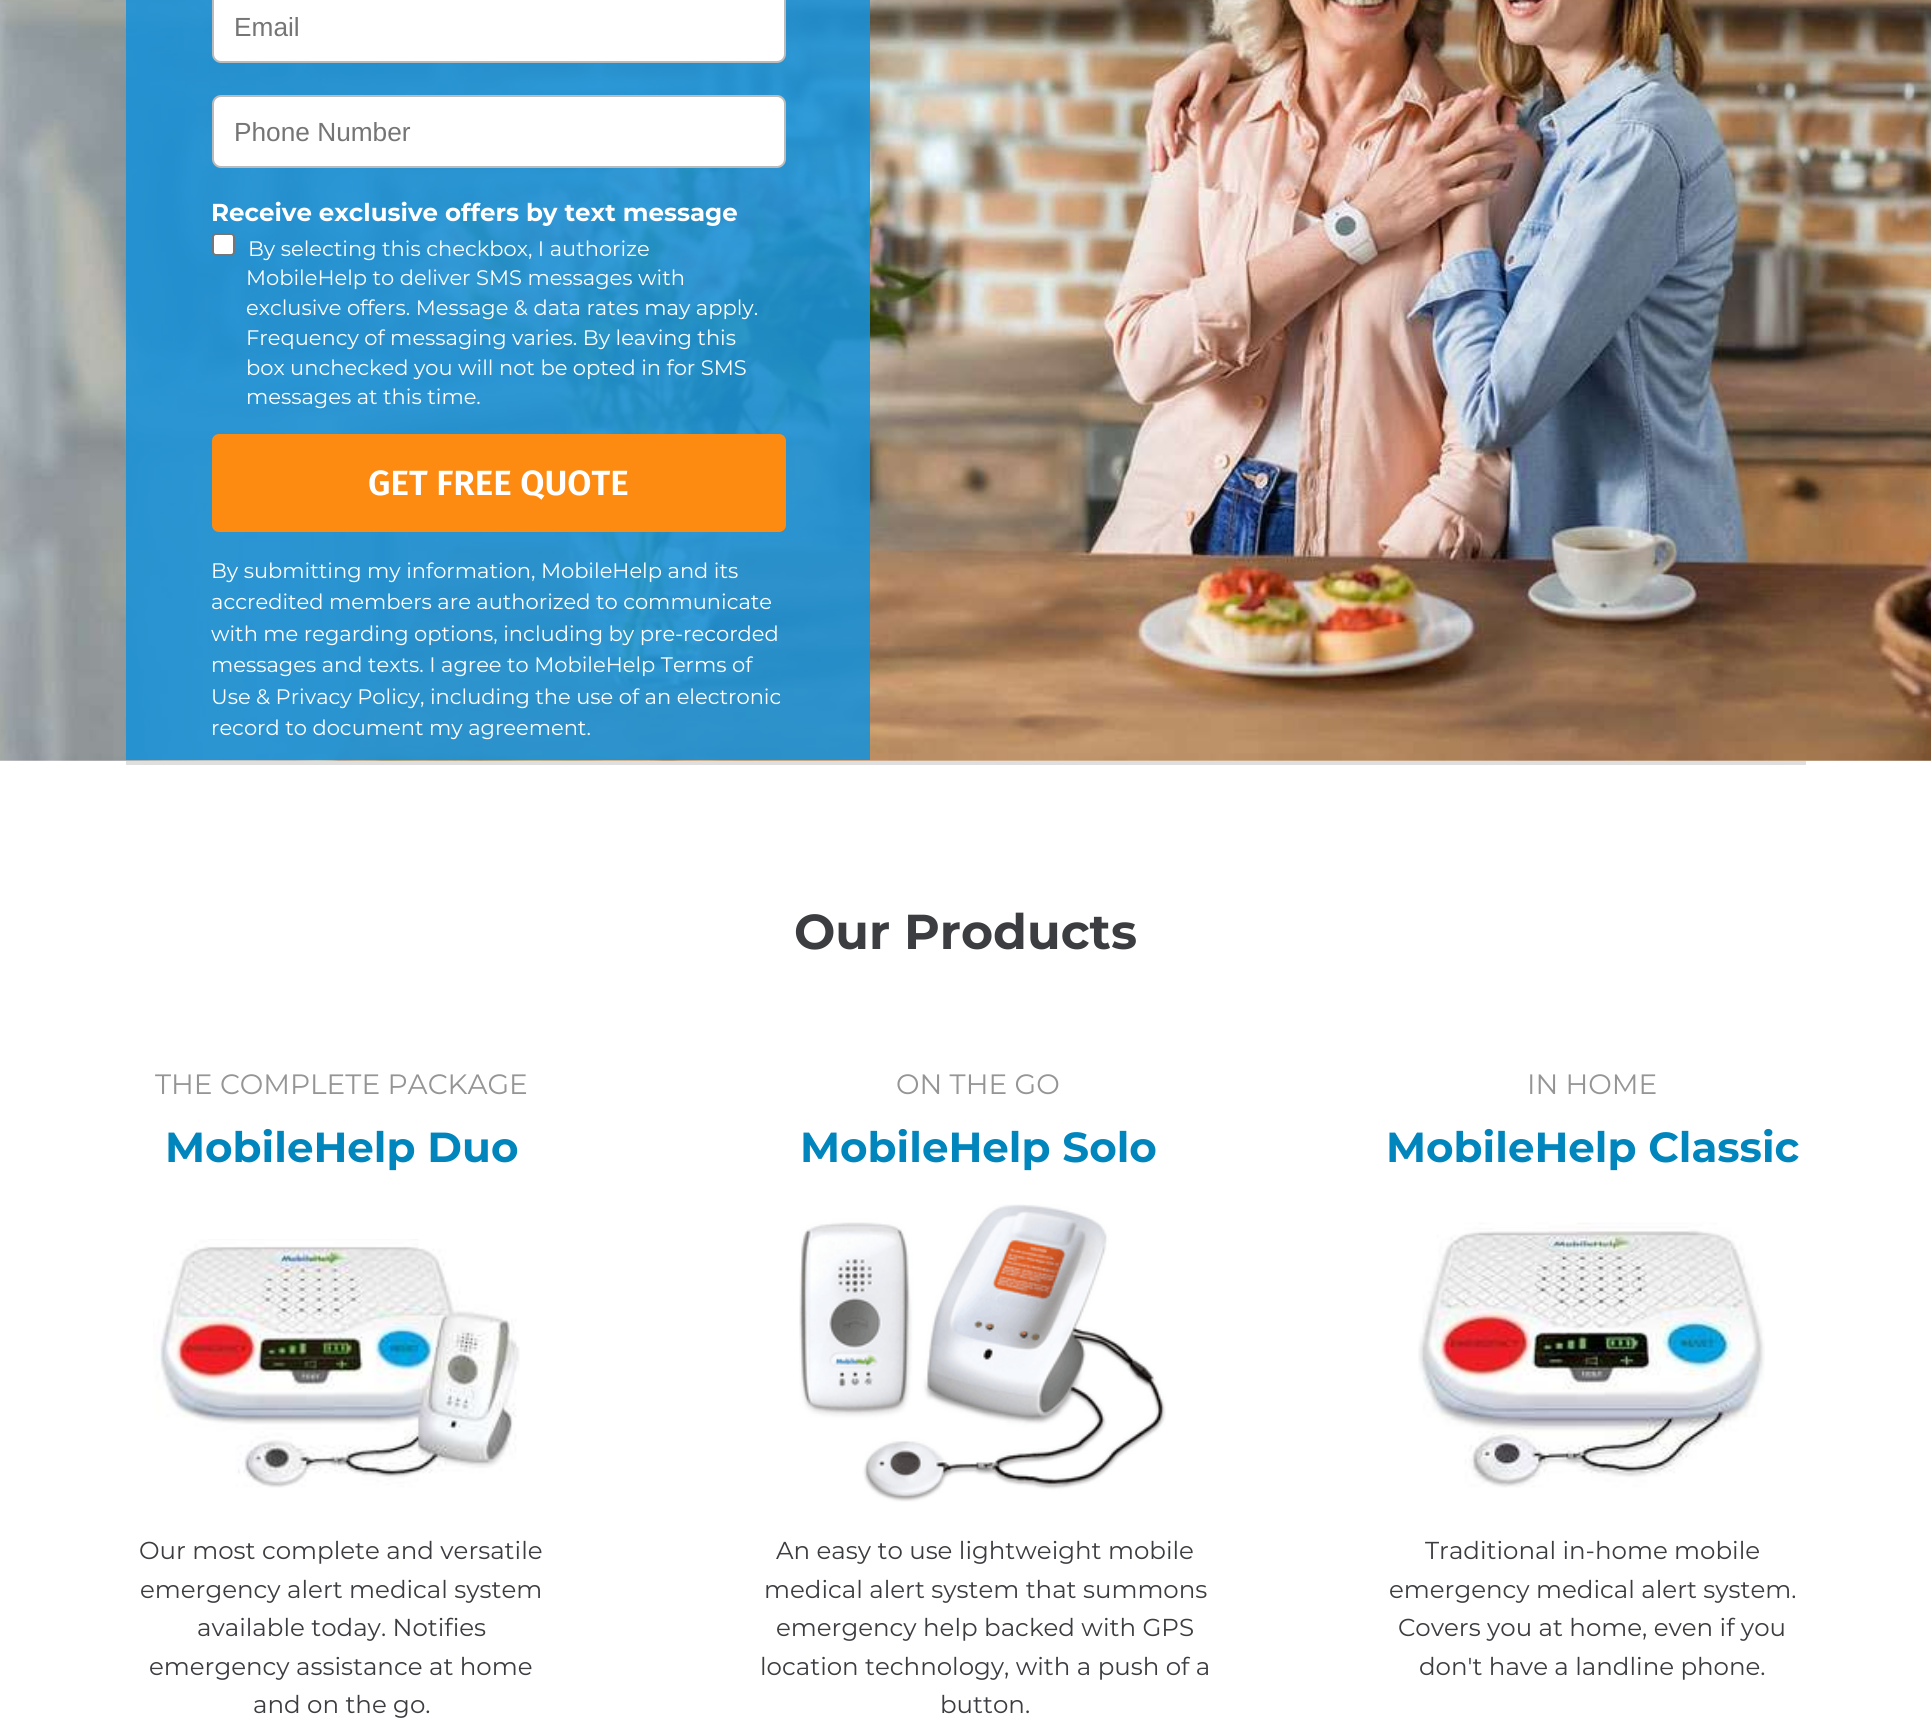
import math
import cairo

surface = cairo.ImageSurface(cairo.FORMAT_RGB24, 1931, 1726)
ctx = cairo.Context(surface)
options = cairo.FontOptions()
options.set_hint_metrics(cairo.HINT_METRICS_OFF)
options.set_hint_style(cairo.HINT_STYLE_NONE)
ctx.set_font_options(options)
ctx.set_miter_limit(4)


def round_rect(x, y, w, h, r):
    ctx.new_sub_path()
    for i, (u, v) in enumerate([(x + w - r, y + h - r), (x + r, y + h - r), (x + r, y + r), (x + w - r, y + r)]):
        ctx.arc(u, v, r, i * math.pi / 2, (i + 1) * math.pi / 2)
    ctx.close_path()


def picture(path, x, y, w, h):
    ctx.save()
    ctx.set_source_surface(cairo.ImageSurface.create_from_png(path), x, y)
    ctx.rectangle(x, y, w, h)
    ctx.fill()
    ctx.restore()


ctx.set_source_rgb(1, 1, 1)
ctx.paint()
picture("img1.png", 0, 0, 1931, 761)
ctx.set_source_rgba(0.102, 0.569, 0.847, 0.88)
ctx.rectangle(126, 0, 744, 760)
ctx.fill()
ctx.set_source_rgb(1, 1, 1)
round_rect(213, -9, 572, 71, 8)
ctx.fill_preserve()
ctx.set_source_rgb(0.733, 0.733, 0.733)
ctx.stroke()
ctx.select_font_face("Liberation Sans")
ctx.set_font_size(26.25)
ctx.set_source_rgb(0.459, 0.459, 0.459)
ctx.move_to(234, 36)
ctx.show_text("Email")
ctx.set_source_rgb(1, 1, 1)
round_rect(213, 96, 572, 71, 8)
ctx.fill_preserve()
ctx.set_source_rgb(0.733, 0.733, 0.733)
ctx.stroke()
ctx.set_source_rgb(0.459, 0.459, 0.459)
ctx.move_to(234, 141)
ctx.show_text("Phone Number")
ctx.select_font_face("Montserrat", cairo.FONT_SLANT_NORMAL, cairo.FONT_WEIGHT_BOLD)
ctx.set_font_size(24.5)
ctx.set_source_rgb(1, 1, 1)
ctx.move_to(211, 221)
ctx.show_text("Receive exclusive offers by text message")
round_rect(213, 234, 21, 21, 3)
ctx.fill_preserve()
ctx.set_source_rgb(0.463, 0.463, 0.463)
ctx.stroke()
ctx.select_font_face("Montserrat")
ctx.set_font_size(21)
ctx.set_source_rgb(1, 1, 1)
ctx.move_to(248, 256)
ctx.show_text("By selecting this checkbox, I authorize")
ctx.move_to(246, 285)
ctx.show_text("MobileHelp to deliver SMS messages with")
ctx.move_to(246, 315)
ctx.show_text("exclusive offers. Message & data rates may apply.")
ctx.move_to(246, 345)
ctx.show_text("Frequency of messaging varies. By leaving this")
ctx.move_to(246, 375)
ctx.show_text("box unchecked you will not be opted in for SMS")
ctx.move_to(246, 404)
ctx.show_text("messages at this time.")
ctx.set_source_rgb(0.992, 0.545, 0.071)
round_rect(212, 434, 574, 98, 7)
ctx.fill()
ctx.select_font_face("Fira Sans SemiBold")
ctx.set_font_size(35)
ctx.set_source_rgb(1, 1, 1)
ctx.move_to(368, 495)
ctx.show_text("GET FREE QUOTE")
ctx.select_font_face("Montserrat")
ctx.set_font_size(21)
ctx.move_to(211, 578)
ctx.show_text("By submitting my information, MobileHelp and its")
ctx.move_to(211, 609)
ctx.show_text("accredited members are authorized to communicate")
ctx.move_to(211, 641)
ctx.show_text("with me regarding options, including by pre-recorded")
ctx.move_to(211, 672)
ctx.show_text("messages and texts. I agree to MobileHelp Terms of")
ctx.move_to(211, 704)
ctx.show_text("Use & Privacy Policy, including the use of an electronic")
ctx.move_to(211, 735)
ctx.show_text("record to document my agreement.")
ctx.set_source_rgb(0.875, 0.875, 0.875)
ctx.rectangle(126, 761, 1680, 4)
ctx.fill()
ctx.select_font_face("Montserrat", cairo.FONT_SLANT_NORMAL, cairo.FONT_WEIGHT_BOLD)
ctx.set_font_size(49)
ctx.set_source_rgb(0.235, 0.239, 0.255)
ctx.move_to(794, 949)
ctx.show_text("Our Products")
ctx.select_font_face("Montserrat")
ctx.set_font_size(28)
ctx.set_source_rgb(0.584, 0.584, 0.584)
ctx.move_to(155, 1094)
ctx.show_text("THE COMPLETE PACKAGE")
ctx.move_to(896, 1094)
ctx.show_text("ON THE GO")
ctx.move_to(1527, 1094)
ctx.show_text("IN HOME")
ctx.select_font_face("Montserrat", cairo.FONT_SLANT_NORMAL, cairo.FONT_WEIGHT_BOLD)
ctx.set_font_size(42)
ctx.set_source_rgb(0, 0.522, 0.741)
ctx.move_to(165, 1162)
ctx.show_text("MobileHelp Duo")
ctx.move_to(800, 1162)
ctx.show_text("MobileHelp Solo")
ctx.move_to(1386, 1162)
ctx.show_text("MobileHelp Classic")
picture("img2.png", 153, 1239, 367, 249)
picture("img3.png", 799, 1204, 367, 298)
picture("img4.png", 1418, 1222, 347, 266)
ctx.select_font_face("Montserrat")
ctx.set_font_size(24.5)
ctx.set_source_rgb(0.235, 0.239, 0.255)
ctx.move_to(139, 1559)
ctx.show_text("Our most complete and versatile")
ctx.move_to(140, 1598)
ctx.show_text("emergency alert medical system")
ctx.move_to(197, 1636)
ctx.show_text("available today. Notifies")
ctx.move_to(149, 1675)
ctx.show_text("emergency assistance at home")
ctx.move_to(253, 1713)
ctx.show_text("and on the go.")
ctx.move_to(776, 1559)
ctx.show_text("An easy to use lightweight mobile")
ctx.move_to(764, 1598)
ctx.show_text("medical alert system that summons")
ctx.move_to(776, 1636)
ctx.show_text("emergency help backed with GPS")
ctx.move_to(760, 1675)
ctx.show_text("location technology, with a push of a")
ctx.move_to(940, 1713)
ctx.show_text("button.")
ctx.move_to(1425, 1559)
ctx.show_text("Traditional in-home mobile")
ctx.move_to(1389, 1598)
ctx.show_text("emergency medical alert system.")
ctx.move_to(1398, 1636)
ctx.show_text("Covers you at home, even if you")
ctx.move_to(1419, 1675)
ctx.show_text("don't have a landline phone.")
surface.write_to_png("page.png")
